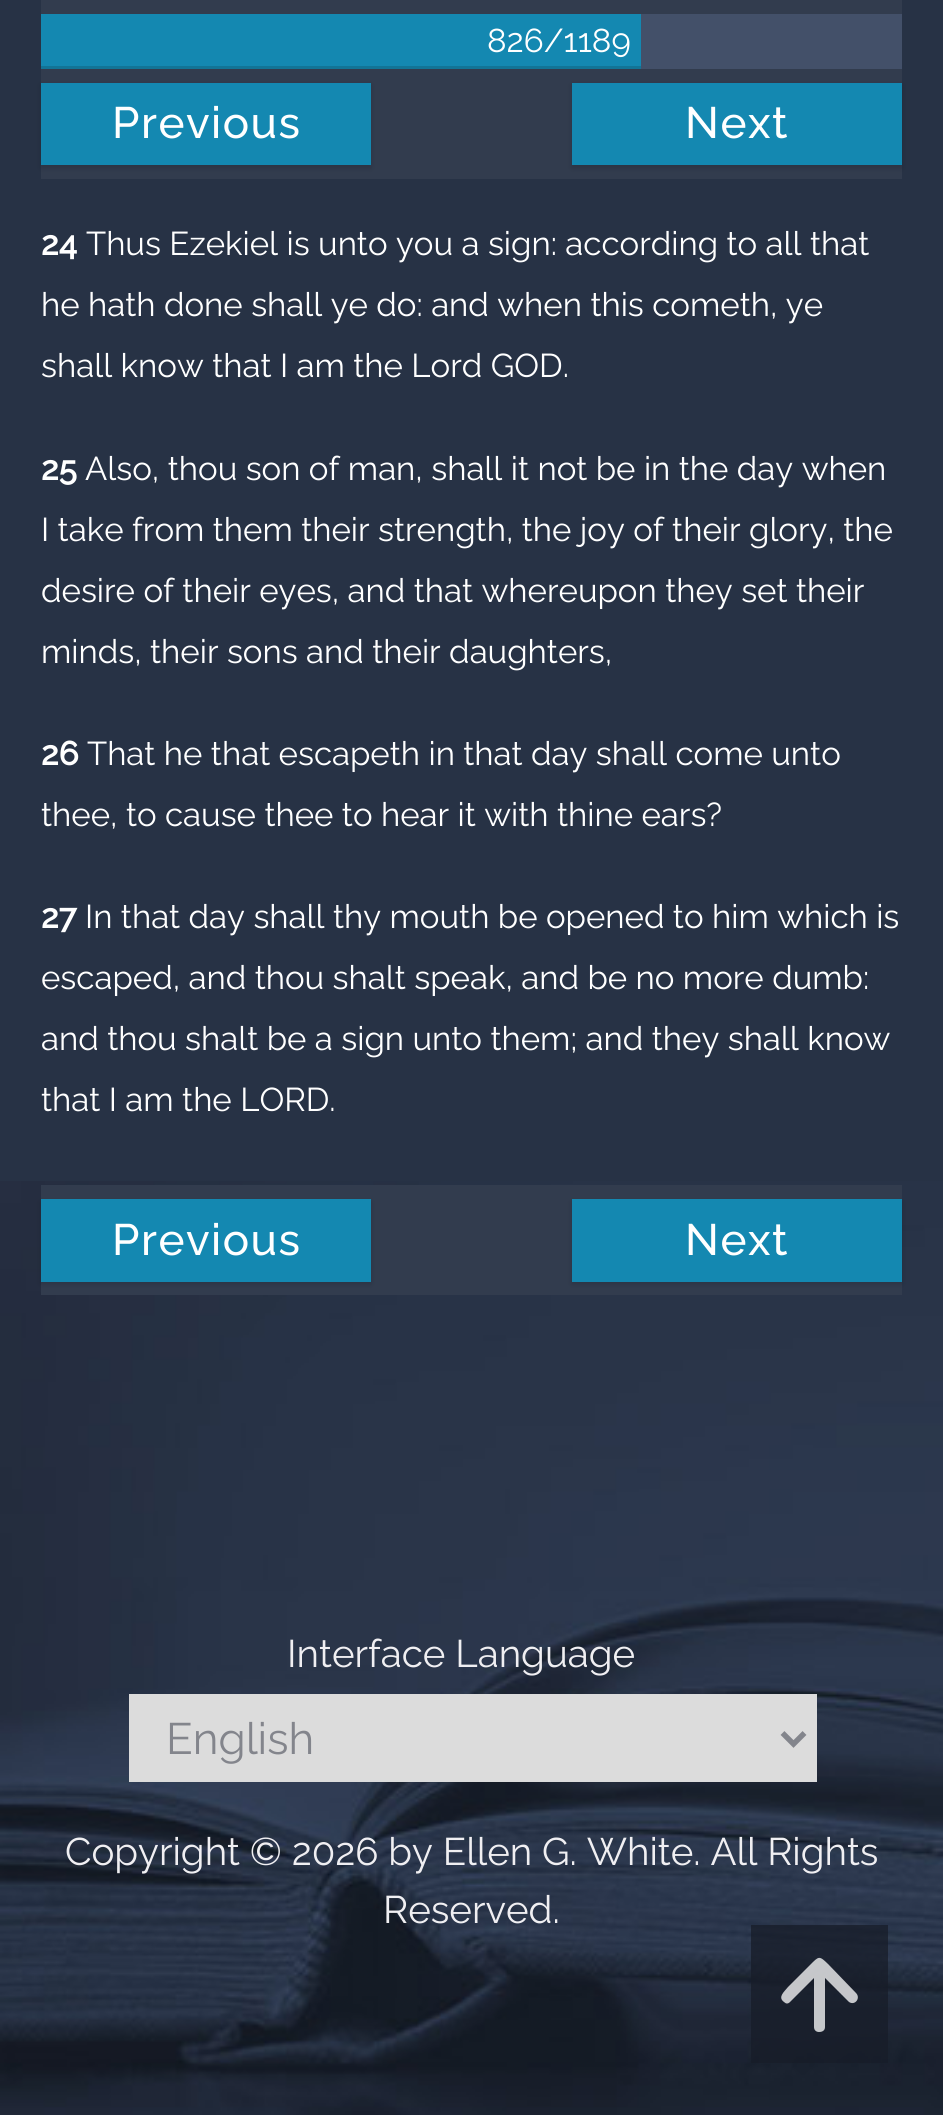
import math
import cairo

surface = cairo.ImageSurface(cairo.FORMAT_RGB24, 943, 2115)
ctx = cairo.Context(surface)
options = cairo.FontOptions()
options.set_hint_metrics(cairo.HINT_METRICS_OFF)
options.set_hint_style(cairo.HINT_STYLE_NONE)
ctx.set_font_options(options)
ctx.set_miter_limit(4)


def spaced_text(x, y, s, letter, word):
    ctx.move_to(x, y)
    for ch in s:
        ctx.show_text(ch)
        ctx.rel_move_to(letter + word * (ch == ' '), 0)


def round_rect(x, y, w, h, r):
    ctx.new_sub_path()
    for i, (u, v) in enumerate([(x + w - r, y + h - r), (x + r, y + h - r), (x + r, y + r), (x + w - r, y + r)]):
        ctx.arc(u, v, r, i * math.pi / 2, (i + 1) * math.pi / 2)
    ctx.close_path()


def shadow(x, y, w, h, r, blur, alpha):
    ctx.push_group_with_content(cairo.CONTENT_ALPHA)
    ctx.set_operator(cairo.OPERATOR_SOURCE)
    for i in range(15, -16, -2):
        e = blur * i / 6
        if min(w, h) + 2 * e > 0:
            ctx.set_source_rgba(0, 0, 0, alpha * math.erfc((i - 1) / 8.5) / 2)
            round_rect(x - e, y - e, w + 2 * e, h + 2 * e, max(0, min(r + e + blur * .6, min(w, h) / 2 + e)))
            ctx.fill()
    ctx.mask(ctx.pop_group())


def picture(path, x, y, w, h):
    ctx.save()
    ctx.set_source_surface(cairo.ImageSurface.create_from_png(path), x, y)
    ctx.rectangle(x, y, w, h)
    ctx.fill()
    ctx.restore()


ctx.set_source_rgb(0.153, 0.196, 0.271)
ctx.paint()
picture("img1.png", 0, 1181, 943, 934)
ctx.set_source_rgb(0.196, 0.235, 0.306)
ctx.rectangle(41, 0, 861, 179)
ctx.fill()
ctx.set_source_rgb(0.263, 0.314, 0.412)
ctx.rectangle(641, 14, 261, 55)
ctx.fill()
ctx.set_source_rgb(0.082, 0.533, 0.694)
ctx.rectangle(41, 14, 600, 52)
ctx.fill()
ctx.set_source_rgb(0.071, 0.455, 0.588)
ctx.rectangle(41, 66, 600, 3)
ctx.fill()
ctx.select_font_face("Raleway")
ctx.set_font_size(33)
ctx.set_source_rgb(1, 1, 1)
ctx.move_to(487, 52)
ctx.show_text("826/1189")
ctx.set_source_rgb(0, 0, 0)
shadow(41, 85, 330, 83, 0, 3, 0.15)
ctx.set_source_rgb(0.082, 0.533, 0.694)
ctx.rectangle(41, 83, 330, 82)
ctx.fill()
ctx.select_font_face("Raleway Medium")
ctx.set_font_size(44)
ctx.set_source_rgb(1, 1, 1)
spaced_text(112, 138, "Previous", 1.5, 0)
ctx.set_source_rgb(0, 0, 0)
shadow(572, 85, 330, 83, 0, 3, 0.15)
ctx.set_source_rgb(0.082, 0.533, 0.694)
ctx.rectangle(572, 83, 330, 82)
ctx.fill()
ctx.set_source_rgb(1, 1, 1)
spaced_text(685, 138, "Next", 1.5, 0)
ctx.select_font_face("Raleway", cairo.FONT_SLANT_NORMAL, cairo.FONT_WEIGHT_BOLD)
ctx.set_font_size(33)
ctx.move_to(41, 255)
ctx.show_text("24")
ctx.select_font_face("Raleway")
ctx.move_to(86, 255)
ctx.show_text("Thus Ezekiel is unto you a sign: according to all that")
ctx.move_to(41, 316)
ctx.show_text("he hath done shall ye do: and when this cometh, ye")
ctx.move_to(41, 377)
ctx.show_text("shall know that I am the Lord GOD.")
ctx.select_font_face("Raleway", cairo.FONT_SLANT_NORMAL, cairo.FONT_WEIGHT_BOLD)
ctx.move_to(41, 480)
ctx.show_text("25")
ctx.select_font_face("Raleway")
ctx.move_to(85, 480)
ctx.show_text("Also, thou son of man, shall it not be in the day when")
ctx.move_to(41, 541)
ctx.show_text("I take from them their strength, the joy of their glory, the")
ctx.move_to(41, 602)
ctx.show_text("desire of their eyes, and that whereupon they set their")
ctx.move_to(41, 663)
ctx.show_text("minds, their sons and their daughters,")
ctx.select_font_face("Raleway", cairo.FONT_SLANT_NORMAL, cairo.FONT_WEIGHT_BOLD)
ctx.move_to(41, 765)
ctx.show_text("26")
ctx.select_font_face("Raleway")
ctx.move_to(87, 765)
ctx.show_text("That he that escapeth in that day shall come unto")
ctx.move_to(41, 826)
ctx.show_text("thee, to cause thee to hear it with thine ears?")
ctx.select_font_face("Raleway", cairo.FONT_SLANT_NORMAL, cairo.FONT_WEIGHT_BOLD)
ctx.move_to(41, 928)
ctx.show_text("27")
ctx.select_font_face("Raleway")
ctx.move_to(85, 928)
ctx.show_text("In that day shall thy mouth be opened to him which is")
ctx.move_to(41, 989)
ctx.show_text("escaped, and thou shalt speak, and be no more dumb:")
ctx.move_to(41, 1050)
ctx.show_text("and thou shalt be a sign unto them; and they shall know")
ctx.move_to(41, 1111)
ctx.show_text("that I am the LORD.")
ctx.set_source_rgb(0.196, 0.235, 0.306)
ctx.rectangle(41, 1185, 861, 110)
ctx.fill()
ctx.set_source_rgb(0, 0, 0)
shadow(41, 1202, 330, 82, 0, 3, 0.15)
ctx.set_source_rgb(0.082, 0.533, 0.694)
ctx.rectangle(41, 1199, 330, 83)
ctx.fill()
ctx.select_font_face("Raleway Medium")
ctx.set_font_size(44)
ctx.set_source_rgb(1, 1, 1)
spaced_text(112, 1255, "Previous", 1.5, 0)
ctx.set_source_rgb(0, 0, 0)
shadow(572, 1202, 330, 82, 0, 3, 0.15)
ctx.set_source_rgb(0.082, 0.533, 0.694)
ctx.rectangle(572, 1199, 330, 83)
ctx.fill()
ctx.set_source_rgb(1, 1, 1)
spaced_text(685, 1255, "Next", 1.5, 0)
ctx.select_font_face("Raleway")
ctx.set_font_size(38.5)
ctx.set_source_rgb(0.941, 0.937, 0.949)
ctx.move_to(287, 1667)
ctx.show_text("Interface Language")
ctx.set_source_rgb(0.863, 0.863, 0.863)
ctx.rectangle(129, 1694, 688, 88)
ctx.fill()
ctx.new_path()
ctx.move_to(782.5, 1733)
ctx.line_to(793.5, 1744)
ctx.line_to(804.5, 1733)
ctx.set_source_rgb(0.514, 0.522, 0.549)
ctx.set_line_width(5.5)
ctx.stroke()
ctx.set_font_size(44)
ctx.move_to(166, 1754)
ctx.show_text("English")
ctx.set_font_size(38.5)
ctx.set_source_rgb(0.941, 0.937, 0.949)
ctx.move_to(65, 1865)
ctx.show_text("Copyright © 2026 by Ellen G. White. All Rights")
ctx.move_to(383, 1923)
ctx.show_text("Reserved.")
ctx.set_source_rgba(0.09, 0.114, 0.161, 0.75)
ctx.rectangle(751, 1925, 137, 138)
ctx.fill()
ctx.set_source_rgba(1, 1, 1, 0.75)
ctx.new_path()
ctx.move_to(856, 1993)
ctx.line_to(829, 1965)
ctx.curve_to(819, 1955, 819, 1956, 810, 1965)
ctx.line_to(788, 1987)
ctx.curve_to(785, 1991, 777, 1997, 784, 2002)
ctx.curve_to(786, 2004, 788, 2004, 790, 2002)
ctx.line_to(814, 1978)
ctx.line_to(814, 2027)
ctx.curve_to(814, 2030, 816, 2032, 819, 2032)
ctx.curve_to(823, 2032, 825, 2030, 825, 2027)
ctx.line_to(825, 1978)
ctx.line_to(849, 2002)
ctx.curve_to(855, 2006, 861, 1998, 856, 1993)
ctx.close_path()
ctx.fill()
surface.write_to_png("page.png")
